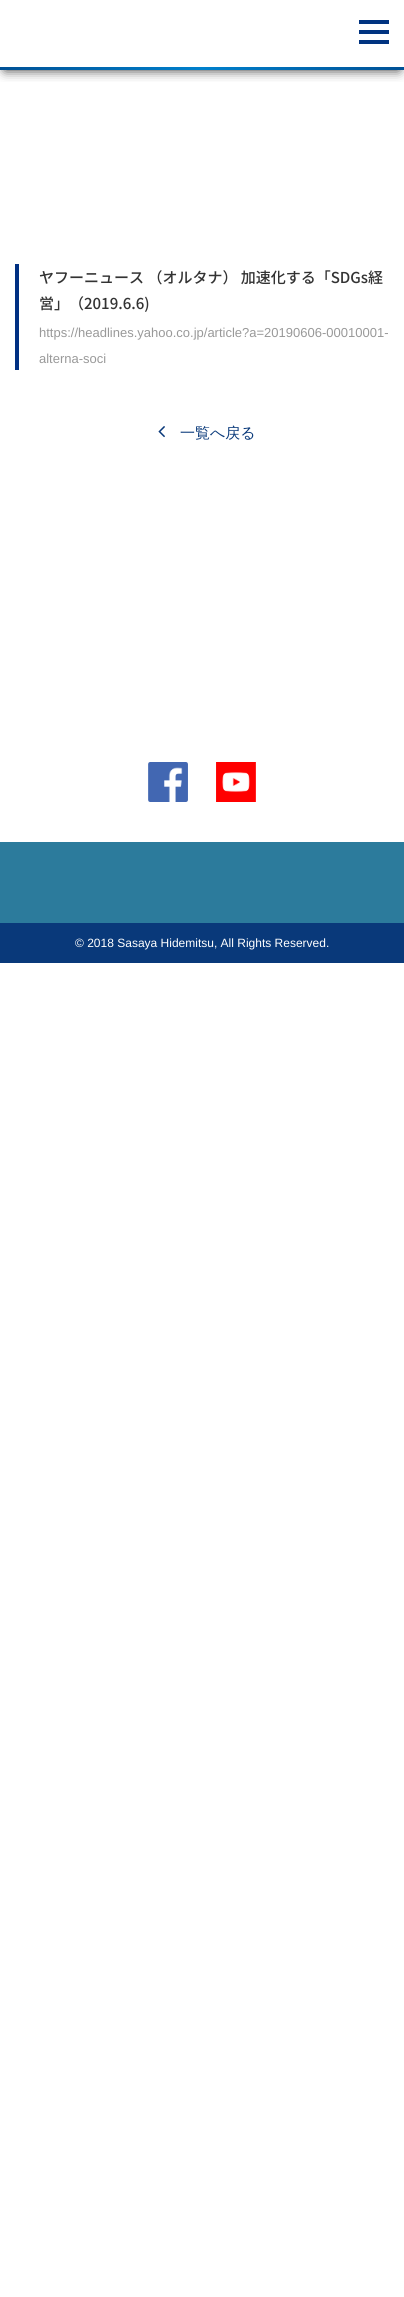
import math
import cairo

surface = cairo.ImageSurface(cairo.FORMAT_RGB24, 404, 2297)
ctx = cairo.Context(surface)
options = cairo.FontOptions()
options.set_hint_metrics(cairo.HINT_METRICS_OFF)
options.set_hint_style(cairo.HINT_STYLE_NONE)
ctx.set_font_options(options)
ctx.set_miter_limit(4)


def round_rect(x, y, w, h, r):
    ctx.new_sub_path()
    for i, (u, v) in enumerate([(x + w - r, y + h - r), (x + r, y + h - r), (x + r, y + r), (x + w - r, y + r)]):
        ctx.arc(u, v, r, i * math.pi / 2, (i + 1) * math.pi / 2)
    ctx.close_path()


def shadow(x, y, w, h, r, blur, alpha):
    ctx.push_group_with_content(cairo.CONTENT_ALPHA)
    ctx.set_operator(cairo.OPERATOR_SOURCE)
    for i in range(15, -16, -2):
        e = blur * i / 6
        if min(w, h) + 2 * e > 0:
            ctx.set_source_rgba(0, 0, 0, alpha * math.erfc((i - 1) / 8.5) / 2)
            round_rect(x - e, y - e, w + 2 * e, h + 2 * e, max(0, min(r + e + blur * .6, min(w, h) / 2 + e)))
            ctx.fill()
    ctx.mask(ctx.pop_group())


def picture(path, x, y, w, h):
    ctx.save()
    ctx.set_source_surface(cairo.ImageSurface.create_from_png(path), x, y)
    ctx.rectangle(x, y, w, h)
    ctx.fill()
    ctx.restore()


ctx.set_source_rgb(1, 1, 1)
ctx.paint()
ctx.save()
ctx.rectangle(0, 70, 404, 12)
ctx.clip()
ctx.set_source_rgb(0, 0, 0)
shadow(5, 10, 394, 60, 0, 6, 0.8)
ctx.restore()
picture("img1.png", 0, 67, 404, 3)
ctx.set_source_rgb(0, 0.2, 0.502)
ctx.rectangle(359, 20, 30, 4)
ctx.fill()
ctx.rectangle(359, 30, 30, 4)
ctx.fill()
ctx.rectangle(359, 40, 30, 4)
ctx.fill()
ctx.set_source_rgb(0, 0.188, 0.51)
ctx.rectangle(15, 264, 4, 106)
ctx.fill()
ctx.select_font_face("Noto Sans JP Medium")
ctx.set_font_size(15)
ctx.set_source_rgb(0.2, 0.2, 0.2)
ctx.move_to(39, 283)
ctx.show_text("ヤフーニュース （オルタナ） 加速化する「SDGs経")
ctx.move_to(39, 309)
ctx.show_text("営」（2019.6.6)")
ctx.select_font_face("Liberation Sans")
ctx.set_font_size(13)
ctx.set_source_rgb(0.6, 0.6, 0.6)
ctx.move_to(39, 337)
ctx.show_text("https://headlines.yahoo.co.jp/article?a=20190606-00010001-")
ctx.move_to(39, 363)
ctx.show_text("alterna-soci")
picture("img2.png", 158, 426, 7, 12)
ctx.select_font_face("WenQuanYi Zen Hei Medium")
ctx.set_font_size(15)
ctx.set_source_rgb(0.039, 0.224, 0.478)
ctx.move_to(180, 438)
ctx.show_text("一覧へ戻る")
picture("img3.png", 148, 762, 40, 40)
picture("img4.png", 216, 762, 40, 40)
ctx.set_source_rgb(0.173, 0.482, 0.612)
ctx.rectangle(0, 842, 404, 81)
ctx.fill()
ctx.set_source_rgb(0.039, 0.224, 0.478)
ctx.rectangle(0, 923, 404, 40)
ctx.fill()
ctx.select_font_face("Liberation Sans")
ctx.set_font_size(12)
ctx.set_source_rgb(1, 1, 1)
ctx.move_to(75, 947)
ctx.show_text("© 2018 Sasaya Hidemitsu, All Rights Reserved.")
surface.write_to_png("page.png")
